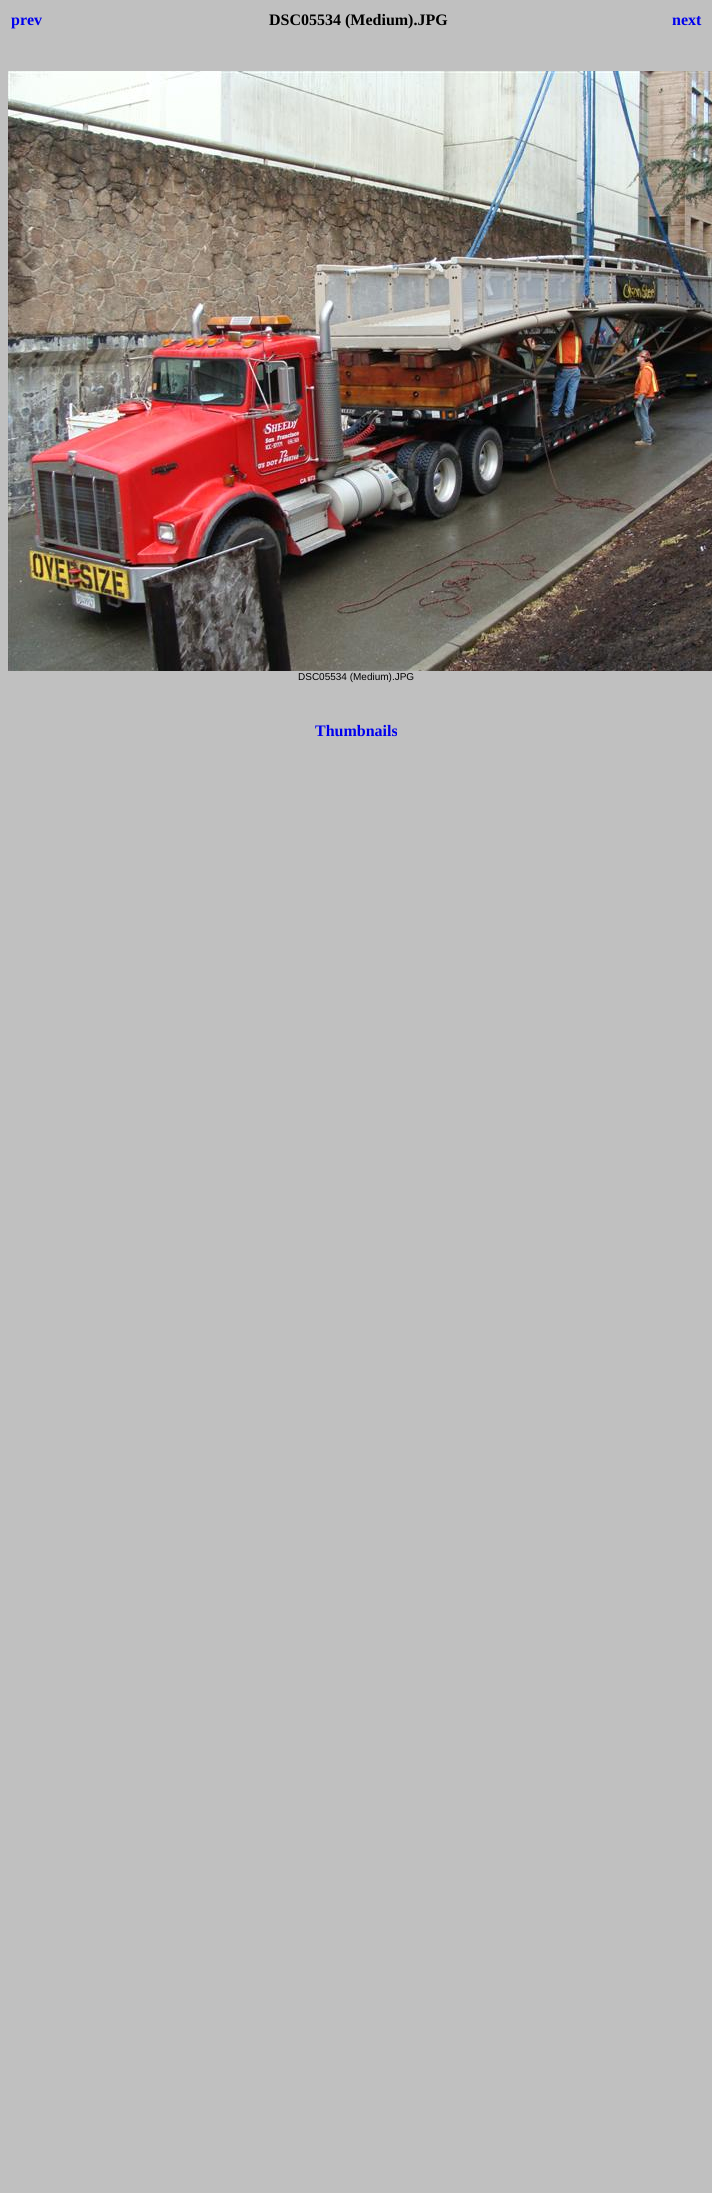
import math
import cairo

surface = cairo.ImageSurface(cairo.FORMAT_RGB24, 712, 2193)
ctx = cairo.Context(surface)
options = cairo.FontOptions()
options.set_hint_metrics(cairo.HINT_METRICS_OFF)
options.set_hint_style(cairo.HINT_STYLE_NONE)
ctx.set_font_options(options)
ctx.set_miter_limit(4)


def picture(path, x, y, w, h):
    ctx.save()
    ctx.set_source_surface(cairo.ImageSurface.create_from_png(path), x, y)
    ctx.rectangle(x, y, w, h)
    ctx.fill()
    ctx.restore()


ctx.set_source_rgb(0.753, 0.753, 0.753)
ctx.paint()
ctx.select_font_face("Liberation Serif", cairo.FONT_SLANT_NORMAL, cairo.FONT_WEIGHT_BOLD)
ctx.set_font_size(16)
ctx.set_source_rgb(0, 0, 0.933)
ctx.move_to(11, 25)
ctx.show_text("prev")
ctx.set_source_rgb(0, 0, 0)
ctx.move_to(269, 25)
ctx.show_text("DSC05534 (Medium).JPG")
ctx.set_source_rgb(0, 0, 0.933)
ctx.move_to(672, 25)
ctx.show_text("next")
picture("img1.png", 8, 71, 704, 600)
ctx.select_font_face("Liberation Sans")
ctx.set_font_size(10)
ctx.set_source_rgb(0, 0, 0)
ctx.move_to(298, 680)
ctx.show_text("DSC05534 (Medium).JPG")
ctx.select_font_face("Liberation Serif", cairo.FONT_SLANT_NORMAL, cairo.FONT_WEIGHT_BOLD)
ctx.set_font_size(16)
ctx.set_source_rgb(0, 0, 0.933)
ctx.move_to(315, 736)
ctx.show_text("Thumbnails")
surface.write_to_png("page.png")
